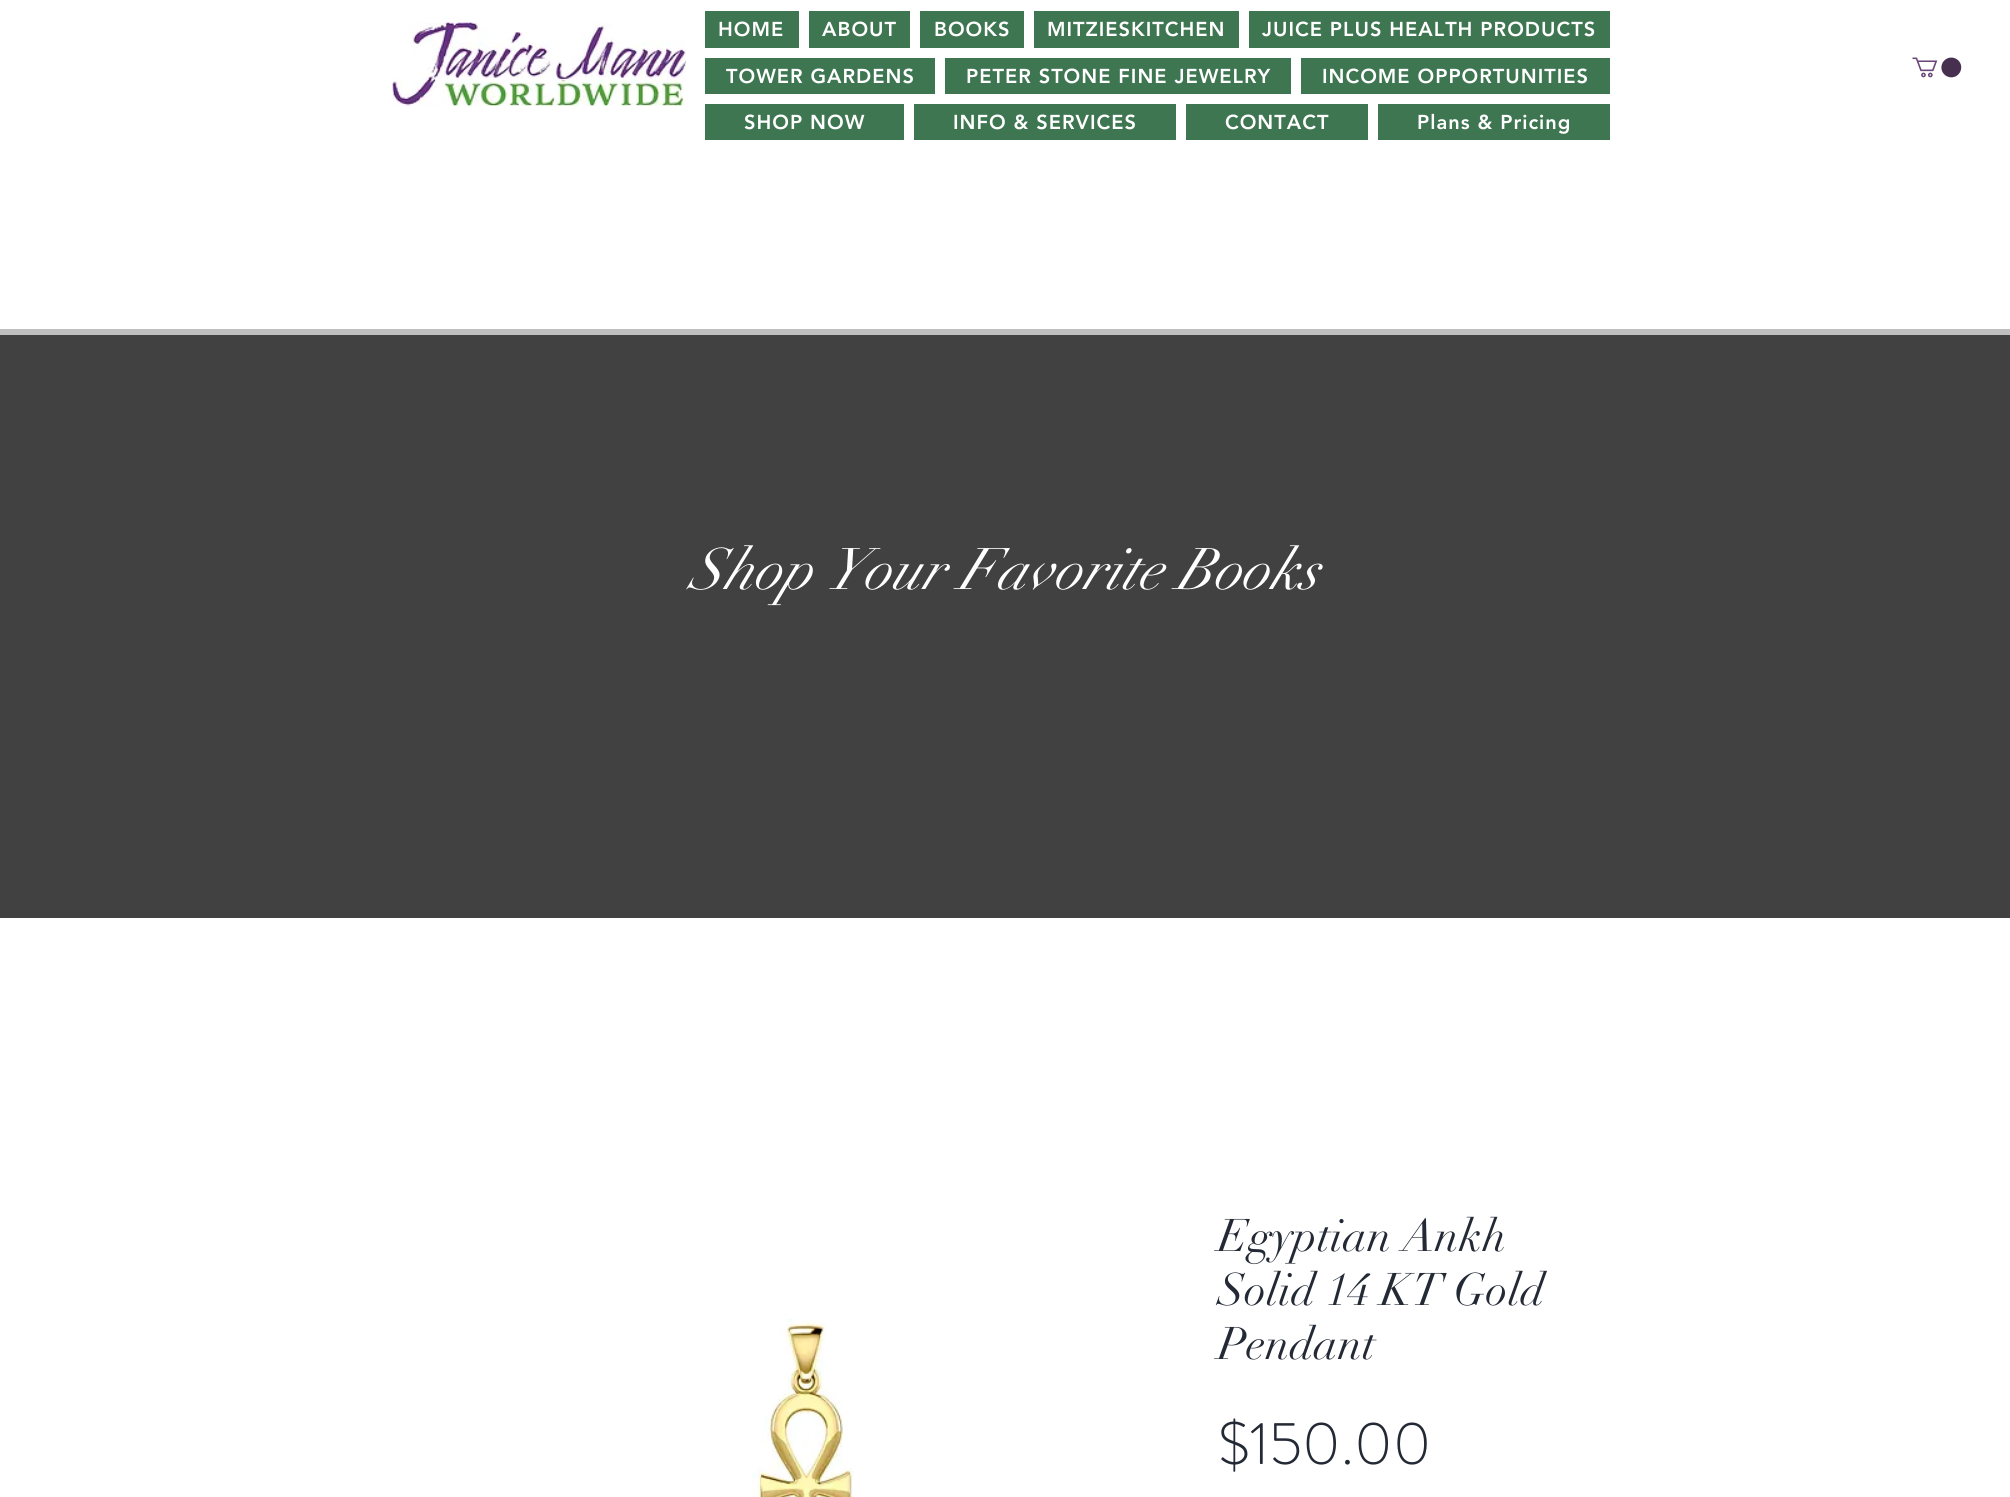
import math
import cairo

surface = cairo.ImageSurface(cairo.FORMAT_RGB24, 2010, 1497)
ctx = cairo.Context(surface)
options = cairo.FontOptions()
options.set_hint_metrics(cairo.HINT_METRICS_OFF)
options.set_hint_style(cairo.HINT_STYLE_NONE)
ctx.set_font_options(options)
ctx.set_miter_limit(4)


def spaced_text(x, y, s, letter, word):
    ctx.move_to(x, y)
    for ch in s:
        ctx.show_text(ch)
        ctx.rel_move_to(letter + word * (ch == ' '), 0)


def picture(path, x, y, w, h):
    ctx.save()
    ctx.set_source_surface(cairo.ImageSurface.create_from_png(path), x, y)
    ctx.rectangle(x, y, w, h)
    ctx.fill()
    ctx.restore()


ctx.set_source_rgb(1, 1, 1)
ctx.paint()
picture("img1.png", 392, 22, 295, 85)
ctx.set_source_rgb(0.247, 0.463, 0.322)
ctx.rectangle(705, 11, 94, 37)
ctx.fill()
ctx.select_font_face("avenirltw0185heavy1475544 Black")
ctx.set_font_size(20)
ctx.set_source_rgb(1, 1, 1)
spaced_text(718, 36, "HOME", 1, 0)
ctx.set_source_rgb(0.247, 0.463, 0.322)
ctx.rectangle(809, 11, 101, 37)
ctx.fill()
ctx.set_source_rgb(1, 1, 1)
spaced_text(822, 36, "ABOUT", 1, 0)
ctx.set_source_rgb(0.247, 0.463, 0.322)
ctx.rectangle(920, 11, 104, 37)
ctx.fill()
ctx.set_source_rgb(1, 1, 1)
spaced_text(934, 36, "BOOKS", 1, 0)
ctx.set_source_rgb(0.247, 0.463, 0.322)
ctx.rectangle(1034, 11, 205, 37)
ctx.fill()
ctx.set_source_rgb(1, 1, 1)
spaced_text(1047, 36, "MITZIESKITCHEN", 1, 0)
ctx.set_source_rgb(0.247, 0.463, 0.322)
ctx.rectangle(1249, 11, 361, 37)
ctx.fill()
ctx.set_source_rgb(1, 1, 1)
spaced_text(1262, 36, "JUICE PLUS HEALTH PRODUCTS", 1, 0)
ctx.set_source_rgb(0.247, 0.463, 0.322)
ctx.rectangle(705, 58, 230, 36)
ctx.fill()
ctx.set_source_rgb(1, 1, 1)
spaced_text(726, 83, "TOWER GARDENS", 1, 0)
ctx.set_source_rgb(0.247, 0.463, 0.322)
ctx.rectangle(945, 58, 346, 36)
ctx.fill()
ctx.set_source_rgb(1, 1, 1)
spaced_text(966, 83, "PETER STONE FINE JEWELRY", 1, 0)
ctx.set_source_rgb(0.247, 0.463, 0.322)
ctx.rectangle(1301, 58, 309, 36)
ctx.fill()
ctx.set_source_rgb(1, 1, 1)
spaced_text(1322, 83, "INCOME OPPORTUNITIES", 1, 0)
ctx.set_source_rgb(0.247, 0.463, 0.322)
ctx.rectangle(705, 104, 199, 36)
ctx.fill()
ctx.set_source_rgb(1, 1, 1)
spaced_text(744, 129, "SHOP NOW", 1, 0)
ctx.set_source_rgb(0.247, 0.463, 0.322)
ctx.rectangle(914, 104, 262, 36)
ctx.fill()
ctx.set_source_rgb(1, 1, 1)
spaced_text(953, 129, "INFO & SERVICES", 1, 0)
ctx.set_source_rgb(0.247, 0.463, 0.322)
ctx.rectangle(1186, 104, 182, 36)
ctx.fill()
ctx.set_source_rgb(1, 1, 1)
spaced_text(1225, 129, "CONTACT", 1, 0)
ctx.set_source_rgb(0.247, 0.463, 0.322)
ctx.rectangle(1378, 104, 232, 36)
ctx.fill()
ctx.set_source_rgb(1, 1, 1)
spaced_text(1417, 129, "Plans & Pricing", 1, 0)
ctx.set_source_rgb(0.749, 0.749, 0.749)
ctx.rectangle(0, 329, 2010, 6)
ctx.fill()
picture("img2.png", 1912, 57, 50, 21)
ctx.set_source_rgb(0.255, 0.255, 0.255)
ctx.rectangle(0, 335, 2010, 583)
ctx.fill()
ctx.select_font_face("didot", cairo.FONT_SLANT_ITALIC)
ctx.set_font_size(57.5)
ctx.set_source_rgb(1, 1, 1)
ctx.move_to(689, 589)
ctx.show_text("Shop Your Favorite Books")
picture("img3.png", 752, 1318, 102, 179)
ctx.select_font_face("didot")
ctx.set_font_size(45)
ctx.set_source_rgb(0.141, 0.165, 0.208)
ctx.move_to(1218, 1251)
ctx.show_text("Egyptian Ankh")
ctx.move_to(1218, 1305)
ctx.show_text("Solid 14 KT Gold")
ctx.move_to(1218, 1359)
ctx.show_text("Pendant")
ctx.select_font_face("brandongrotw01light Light")
ctx.set_font_size(60)
ctx.move_to(1218, 1464)
ctx.show_text("$150.00")
surface.write_to_png("page.png")
